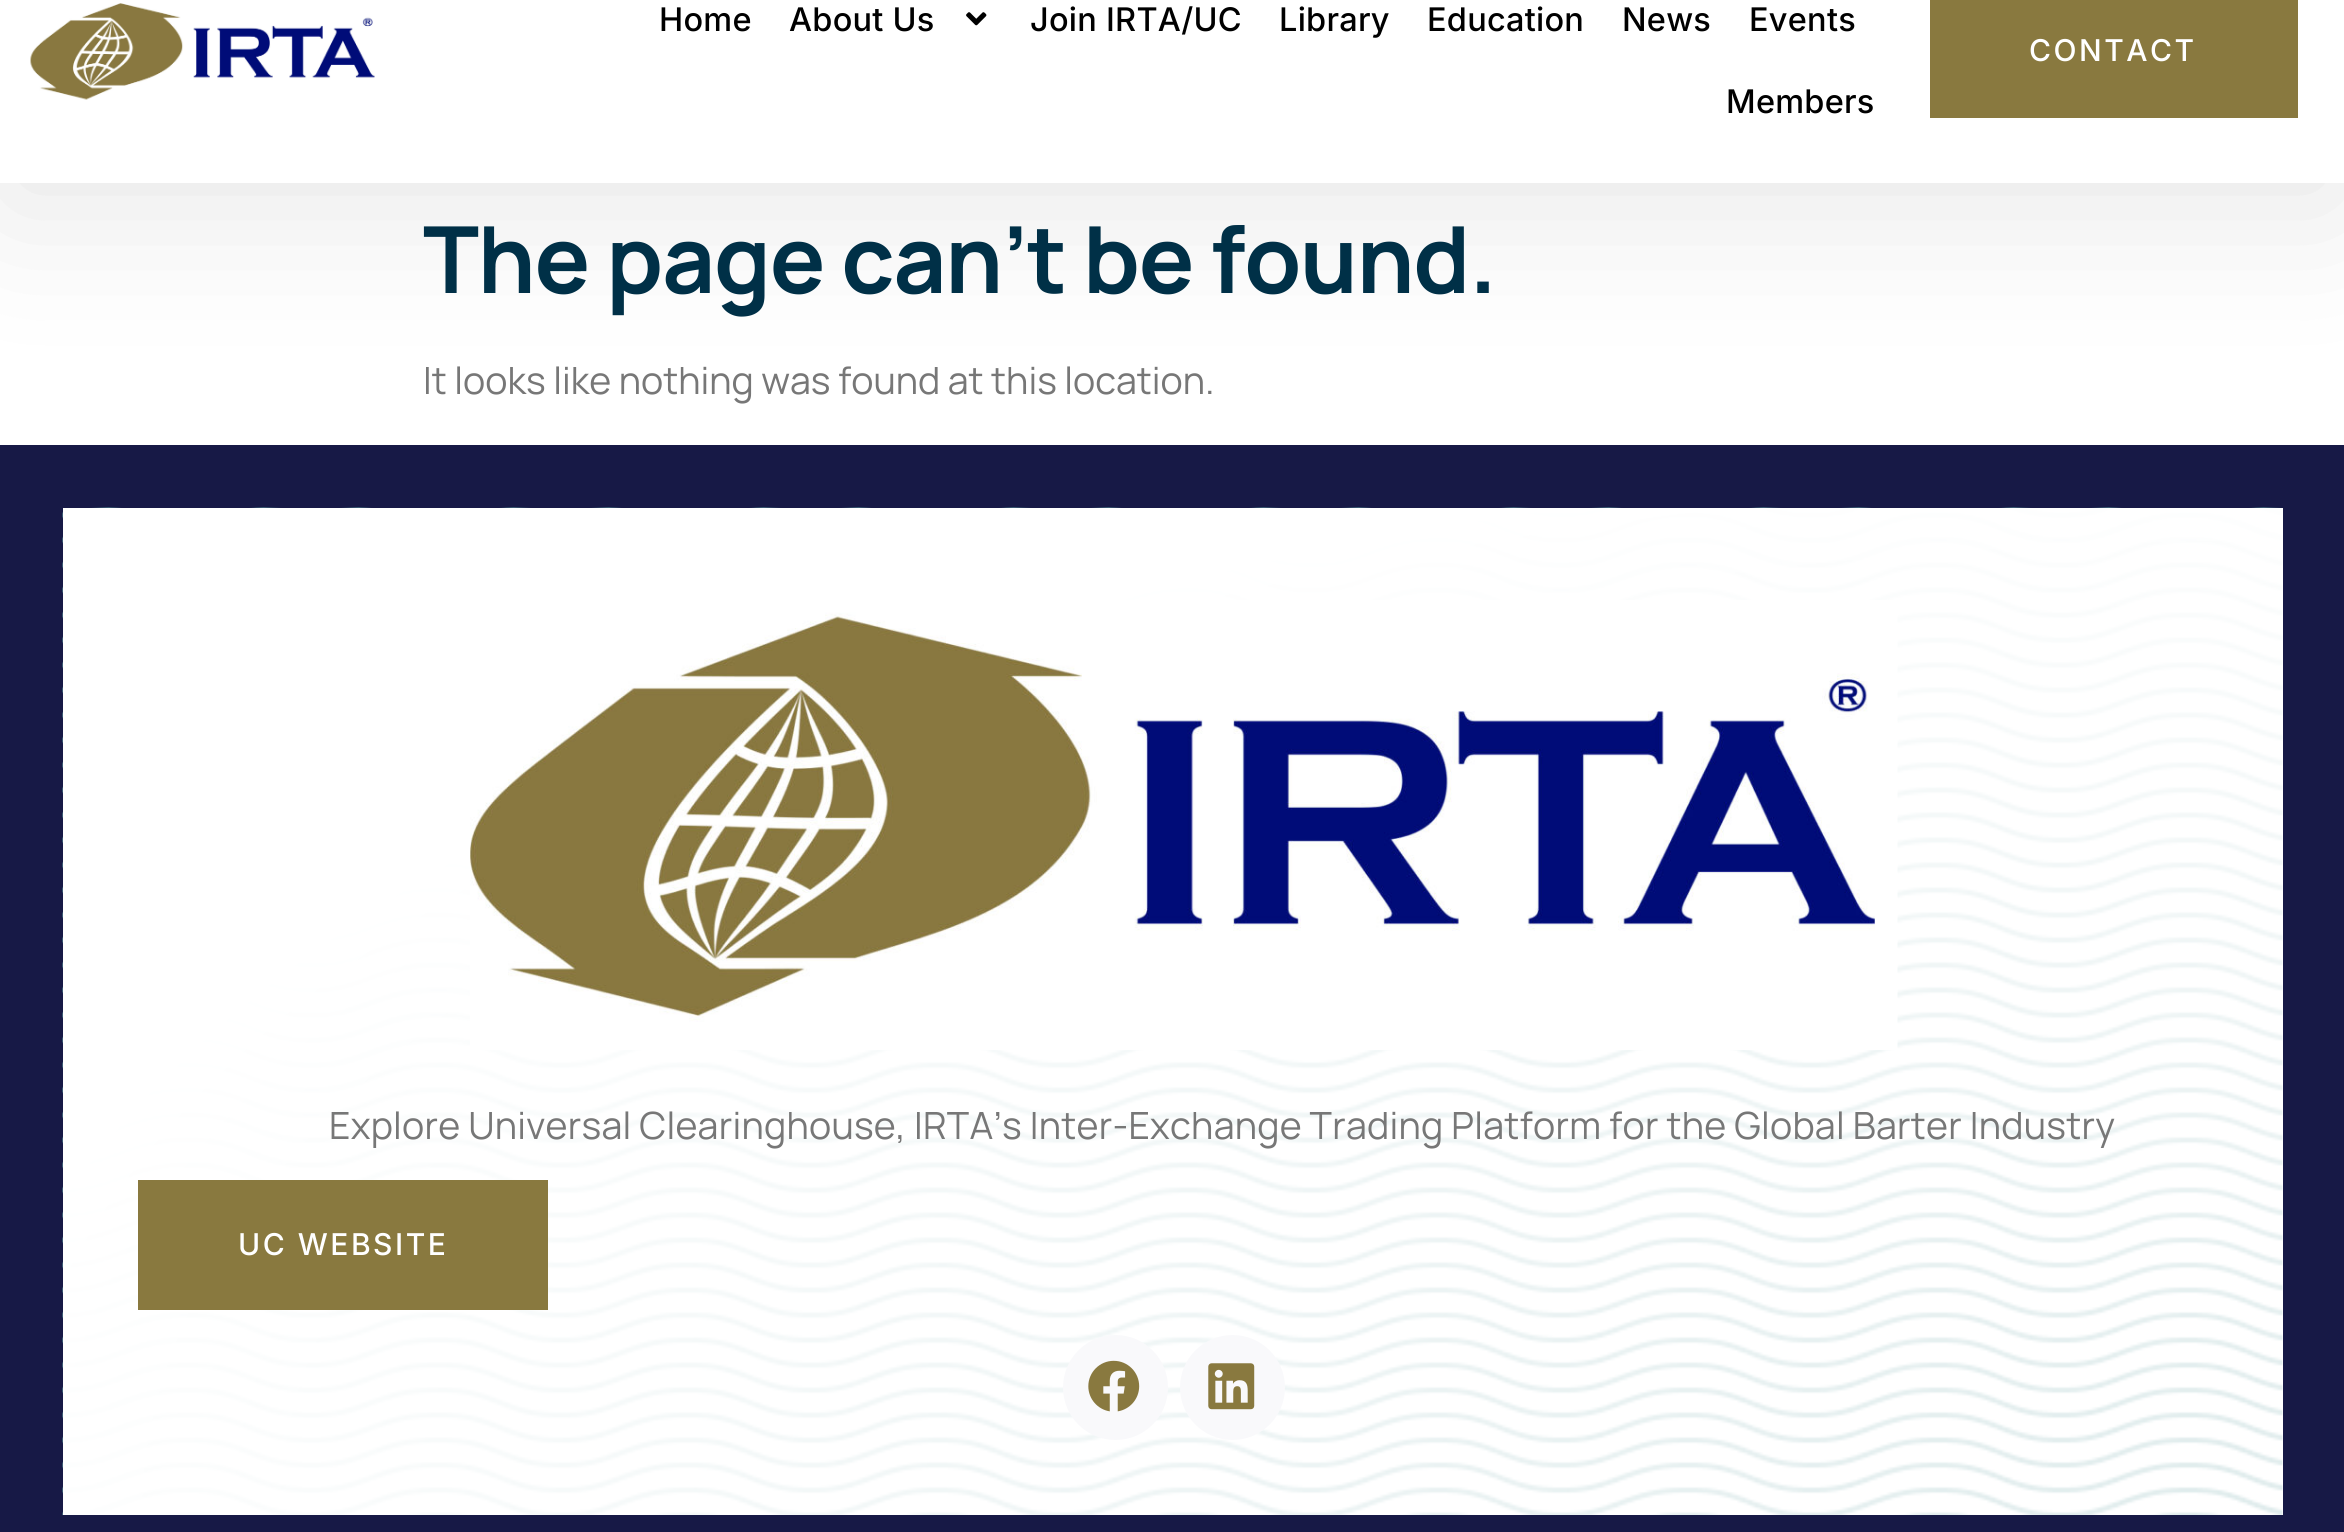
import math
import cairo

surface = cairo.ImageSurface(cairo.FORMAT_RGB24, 2344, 1532)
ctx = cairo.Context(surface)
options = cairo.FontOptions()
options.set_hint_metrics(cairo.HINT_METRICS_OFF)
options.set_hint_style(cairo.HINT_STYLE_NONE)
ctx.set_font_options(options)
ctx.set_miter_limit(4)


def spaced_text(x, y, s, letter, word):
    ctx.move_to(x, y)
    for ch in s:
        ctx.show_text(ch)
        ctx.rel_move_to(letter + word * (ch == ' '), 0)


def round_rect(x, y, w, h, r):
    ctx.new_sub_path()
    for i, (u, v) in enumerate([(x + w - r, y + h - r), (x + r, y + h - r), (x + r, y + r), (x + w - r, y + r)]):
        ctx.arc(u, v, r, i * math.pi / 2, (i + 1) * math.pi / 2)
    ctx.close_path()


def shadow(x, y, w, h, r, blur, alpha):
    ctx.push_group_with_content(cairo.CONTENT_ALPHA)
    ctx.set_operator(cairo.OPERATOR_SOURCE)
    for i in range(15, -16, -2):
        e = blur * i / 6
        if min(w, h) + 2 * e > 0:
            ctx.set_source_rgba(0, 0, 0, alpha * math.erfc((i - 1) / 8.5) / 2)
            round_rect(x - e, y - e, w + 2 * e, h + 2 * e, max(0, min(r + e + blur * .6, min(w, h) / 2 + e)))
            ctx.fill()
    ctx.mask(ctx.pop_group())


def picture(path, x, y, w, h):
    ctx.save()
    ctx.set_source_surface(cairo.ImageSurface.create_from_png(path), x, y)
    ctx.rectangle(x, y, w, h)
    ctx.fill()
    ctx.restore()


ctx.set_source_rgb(1, 1, 1)
ctx.paint()
ctx.save()
ctx.set_fill_rule(cairo.FILL_RULE_EVEN_ODD)
ctx.new_path()
ctx.move_to(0, 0)
ctx.line_to(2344, 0)
ctx.line_to(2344, 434)
ctx.line_to(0, 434)
ctx.close_path()
ctx.move_to(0, -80)
ctx.line_to(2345, -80)
ctx.line_to(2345, 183)
ctx.line_to(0, 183)
ctx.close_path()
ctx.clip()
ctx.set_source_rgb(0, 0, 0)
shadow(0, -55, 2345, 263, 0, 75, 0.1)
ctx.restore()
picture("img1.png", 30, 3, 345, 97)
ctx.select_font_face("Inter Medium")
ctx.set_font_size(32.5)
ctx.set_source_rgb(0, 0, 0)
spaced_text(659, 31, "Home", 0.25, 0)
spaced_text(789, 31, "About Us", 0.25, 0)
picture("img2.png", 966, 12, 21, 14)
spaced_text(1030, 31, "Join IRTA/UC", 0.25, 0)
spaced_text(1279, 31, "Library", 0.25, 0)
spaced_text(1427, 31, "Education", 0.25, 0)
spaced_text(1622, 31, "News", 0.25, 0)
spaced_text(1749, 31, "Events", 0.25, 0)
spaced_text(1726, 113, "Members", 0.25, 0)
ctx.set_source_rgb(0.537, 0.475, 0.247)
ctx.rectangle(1930, 0, 368, 118)
ctx.fill()
ctx.set_font_size(30)
ctx.set_source_rgb(1, 1, 1)
spaced_text(2029, 61, "CONTACT", 2.5, 0)
ctx.select_font_face("Manrope", cairo.FONT_SLANT_NORMAL, cairo.FONT_WEIGHT_BOLD)
ctx.set_font_size(92.5)
ctx.set_source_rgb(0, 0.188, 0.278)
spaced_text(423, 293, "The page can’t be found.", -1.25, 0)
ctx.select_font_face("Manrope")
ctx.set_font_size(37.5)
ctx.set_source_rgb(0.467, 0.467, 0.467)
ctx.move_to(423, 394)
ctx.show_text("It looks like nothing was found at this location.")
ctx.set_source_rgb(0.09, 0.098, 0.275)
ctx.rectangle(0, 445, 2344, 1087)
ctx.fill()
ctx.set_source_rgb(1, 1, 1)
ctx.rectangle(63, 508, 2220, 1007)
ctx.fill()
picture("img3.png", 62, 507, 2221, 1008)
gradient = cairo.RadialGradient(0, 0, 0, 0, 0, 1)
gradient.set_matrix(cairo.Matrix(1 / 3140, 0, 0, 1 / 1425, -1 * 2283 / 3140, -1 * 1515 / 1425))
gradient.add_color_stop_rgba(0, 1, 1, 1, 0.8)
gradient.add_color_stop_rgba(0.75, 1, 1, 1, 1)
ctx.set_source(gradient)
ctx.rectangle(63, 508, 2220, 1007)
ctx.fill()
picture("img4.png", 470, 600, 1428, 450)
ctx.set_source_rgb(0.467, 0.467, 0.467)
spaced_text(329, 1139, "Explore Universal Clearinghouse, IRTA’s Inter-Exchange Trading Platform for the Global Barter Industry", 0.25, 0)
ctx.set_source_rgb(0.537, 0.475, 0.247)
ctx.rectangle(138, 1180, 410, 130)
ctx.fill()
ctx.select_font_face("Inter Medium")
ctx.set_font_size(30)
ctx.set_source_rgb(1, 1, 1)
spaced_text(238, 1255, "UC WEBSITE", 2.5, 0)
ctx.set_source_rgb(0.973, 0.976, 0.984)
ctx.new_path()
ctx.arc(1115.5, 1387.5, 52.5, 0, 2 * math.pi)
ctx.fill()
picture("img5.png", 1088, 1360, 52, 52)
ctx.arc(1232.5, 1387.5, 52.5, 0, 2 * math.pi)
ctx.fill()
picture("img6.png", 1208, 1363, 47, 47)
surface.write_to_png("page.png")
